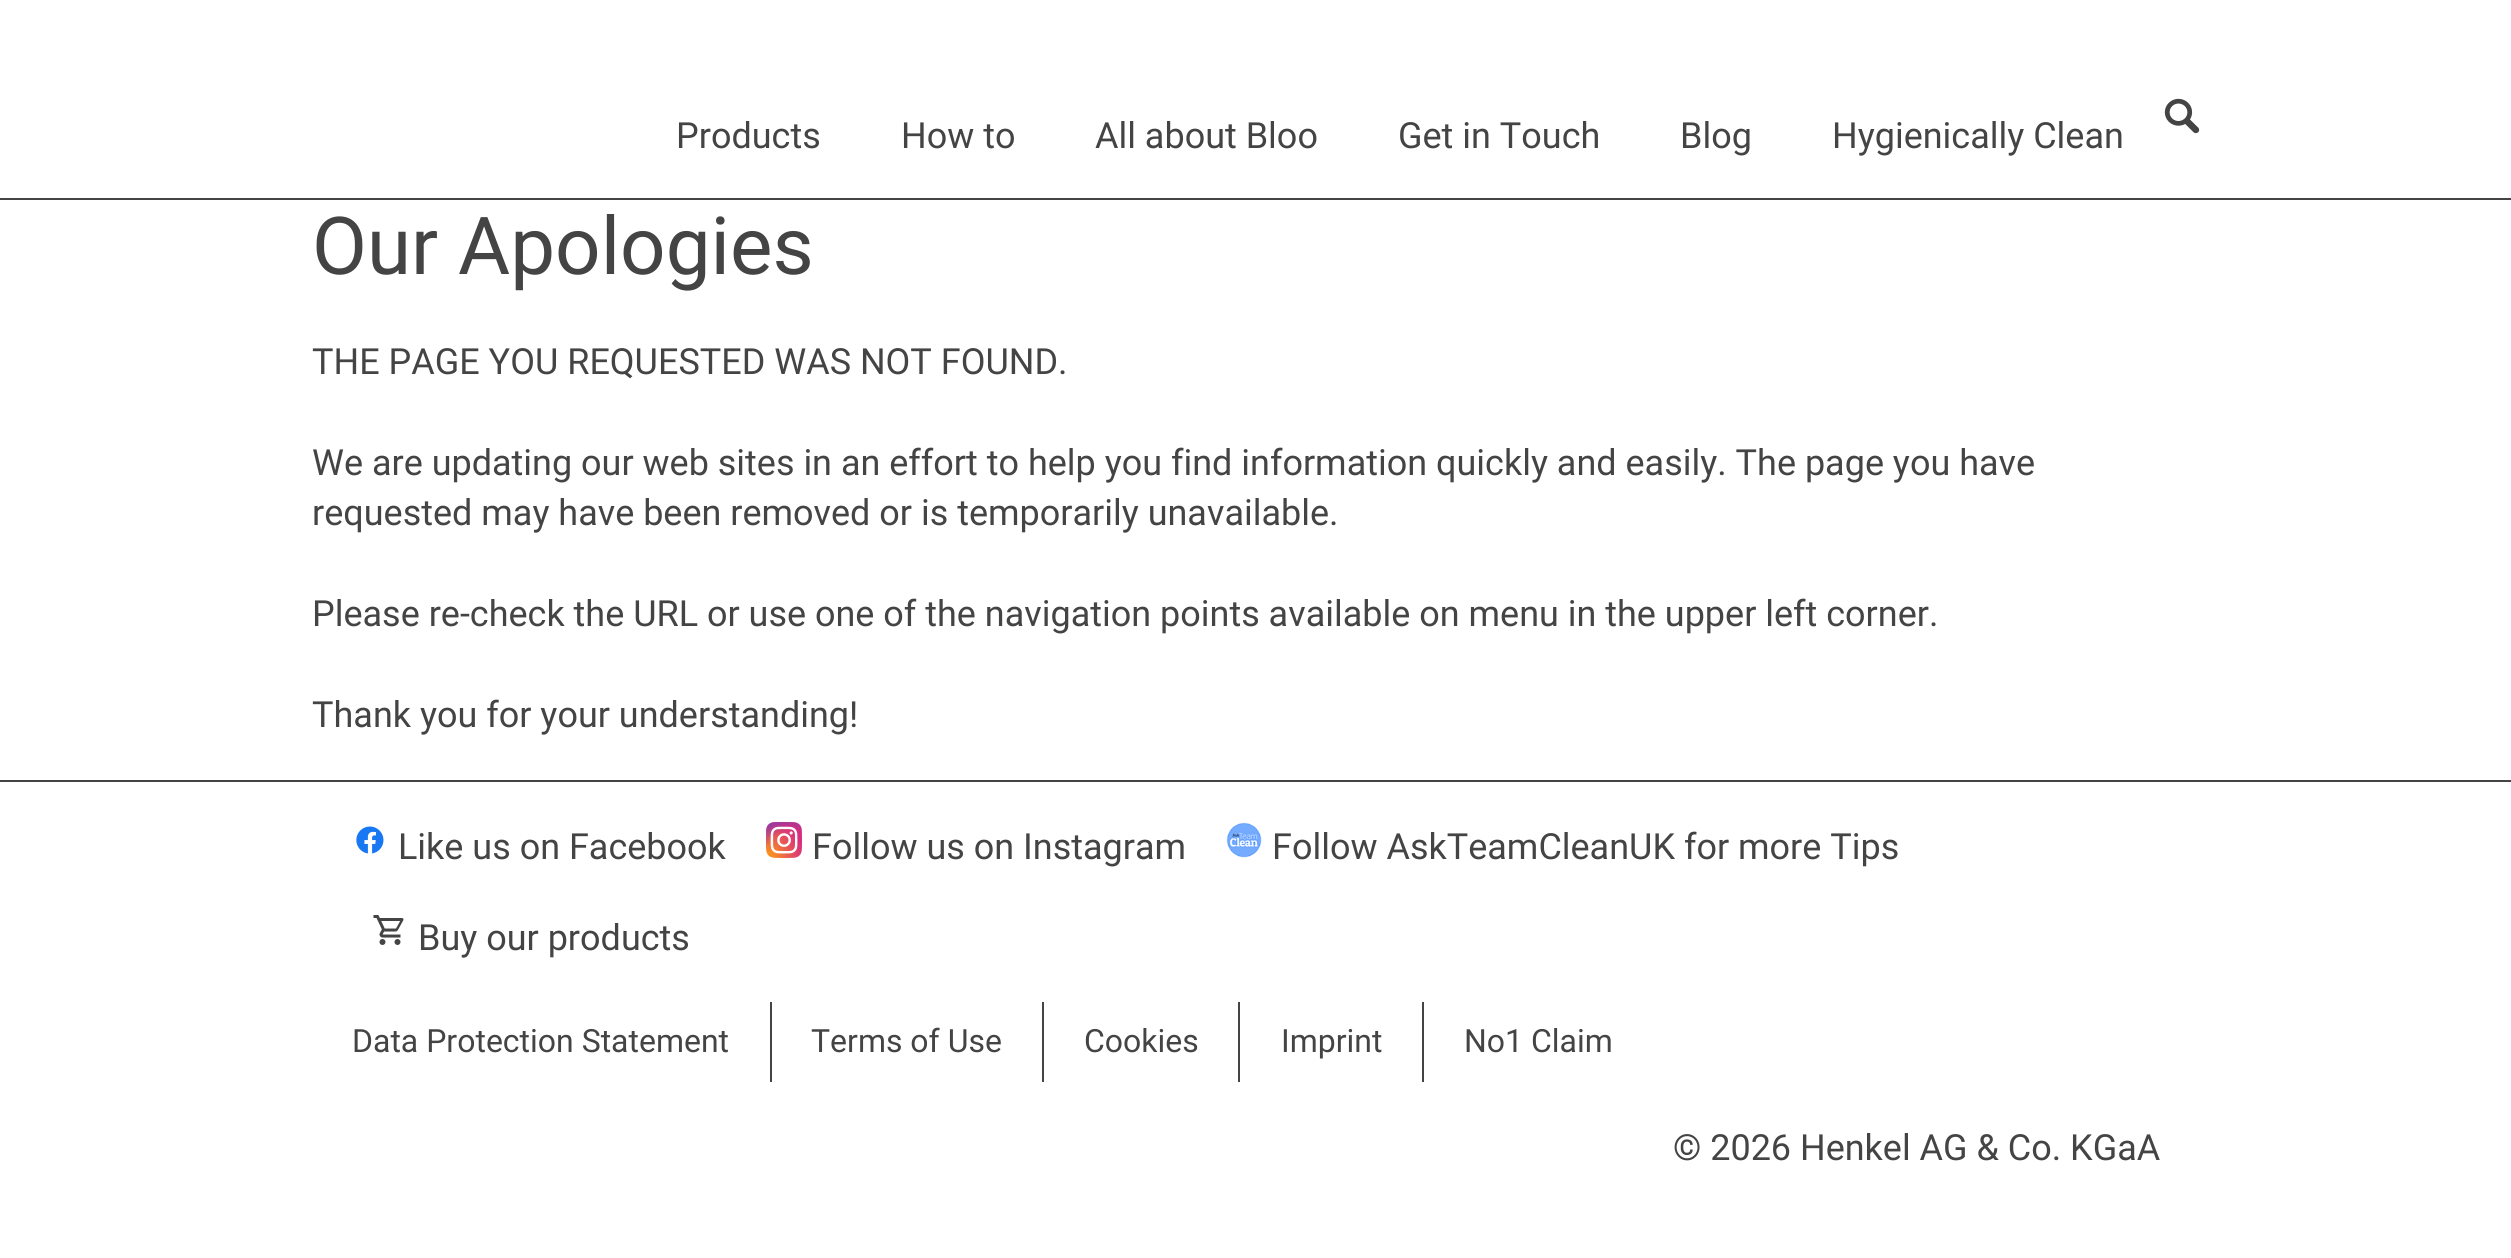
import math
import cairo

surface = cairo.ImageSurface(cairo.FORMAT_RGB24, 2511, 1258)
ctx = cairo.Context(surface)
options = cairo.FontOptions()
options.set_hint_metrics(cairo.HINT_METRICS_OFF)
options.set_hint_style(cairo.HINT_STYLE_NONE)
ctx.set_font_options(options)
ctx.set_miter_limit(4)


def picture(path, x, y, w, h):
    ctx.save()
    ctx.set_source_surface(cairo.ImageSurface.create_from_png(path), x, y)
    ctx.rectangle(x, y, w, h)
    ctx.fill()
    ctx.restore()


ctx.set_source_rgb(1, 1, 1)
ctx.paint()
picture("img1.png", 2164, 98, 36, 36)
ctx.select_font_face("Roboto")
ctx.set_font_size(36)
ctx.set_source_rgb(0.267, 0.267, 0.267)
ctx.move_to(676, 148)
ctx.show_text("Products")
ctx.move_to(901, 148)
ctx.show_text("How to")
ctx.move_to(1095, 148)
ctx.show_text("All about Bloo")
ctx.move_to(1398, 148)
ctx.show_text("Get in Touch")
ctx.move_to(1680, 148)
ctx.show_text("Blog")
ctx.move_to(1832, 148)
ctx.show_text("Hygienically Clean")
ctx.rectangle(0, 198, 2511, 2)
ctx.fill()
ctx.set_font_size(80)
ctx.move_to(312, 274)
ctx.show_text("Our Apologies")
ctx.set_font_size(36)
ctx.move_to(312, 374)
ctx.show_text("THE PAGE YOU REQUESTED WAS NOT FOUND.")
ctx.move_to(312, 475)
ctx.show_text("We are updating our web sites in an effort to help you find information quickly and easily. The page you have")
ctx.move_to(312, 525)
ctx.show_text("requested may have been removed or is temporarily unavailable.")
ctx.move_to(312, 626)
ctx.show_text("Please re-check the URL or use one of the navigation points available on menu in the upper left corner.")
ctx.move_to(312, 727)
ctx.show_text("Thank you for your understanding!")
ctx.rectangle(0, 780, 2511, 2)
ctx.fill()
picture("img2.png", 356, 826, 28, 28)
ctx.move_to(398, 859)
ctx.show_text("Like us on Facebook")
picture("img3.png", 766, 822, 36, 36)
ctx.move_to(812, 859)
ctx.show_text("Follow us on Instagram")
picture("img4.png", 1226, 822, 36, 36)
ctx.move_to(1272, 859)
ctx.show_text("Follow AskTeamCleanUK for more Tips")
picture("img5.png", 373, 915, 31, 30)
ctx.move_to(418, 950)
ctx.show_text("Buy our products")
ctx.rectangle(770, 1002, 2, 80)
ctx.fill()
ctx.set_font_size(32)
ctx.move_to(352, 1052)
ctx.show_text("Data Protection Statement")
ctx.rectangle(1042, 1002, 2, 80)
ctx.fill()
ctx.move_to(811, 1052)
ctx.show_text("Terms of Use")
ctx.rectangle(1238, 1002, 2, 80)
ctx.fill()
ctx.move_to(1084, 1052)
ctx.show_text("Cookies")
ctx.rectangle(1422, 1002, 2, 80)
ctx.fill()
ctx.move_to(1281, 1052)
ctx.show_text("Imprint")
ctx.move_to(1464, 1052)
ctx.show_text("No1 Claim")
ctx.set_font_size(36)
ctx.move_to(1673, 1160)
ctx.show_text("© 2026 Henkel AG & Co. KGaA")
surface.write_to_png("page.png")
